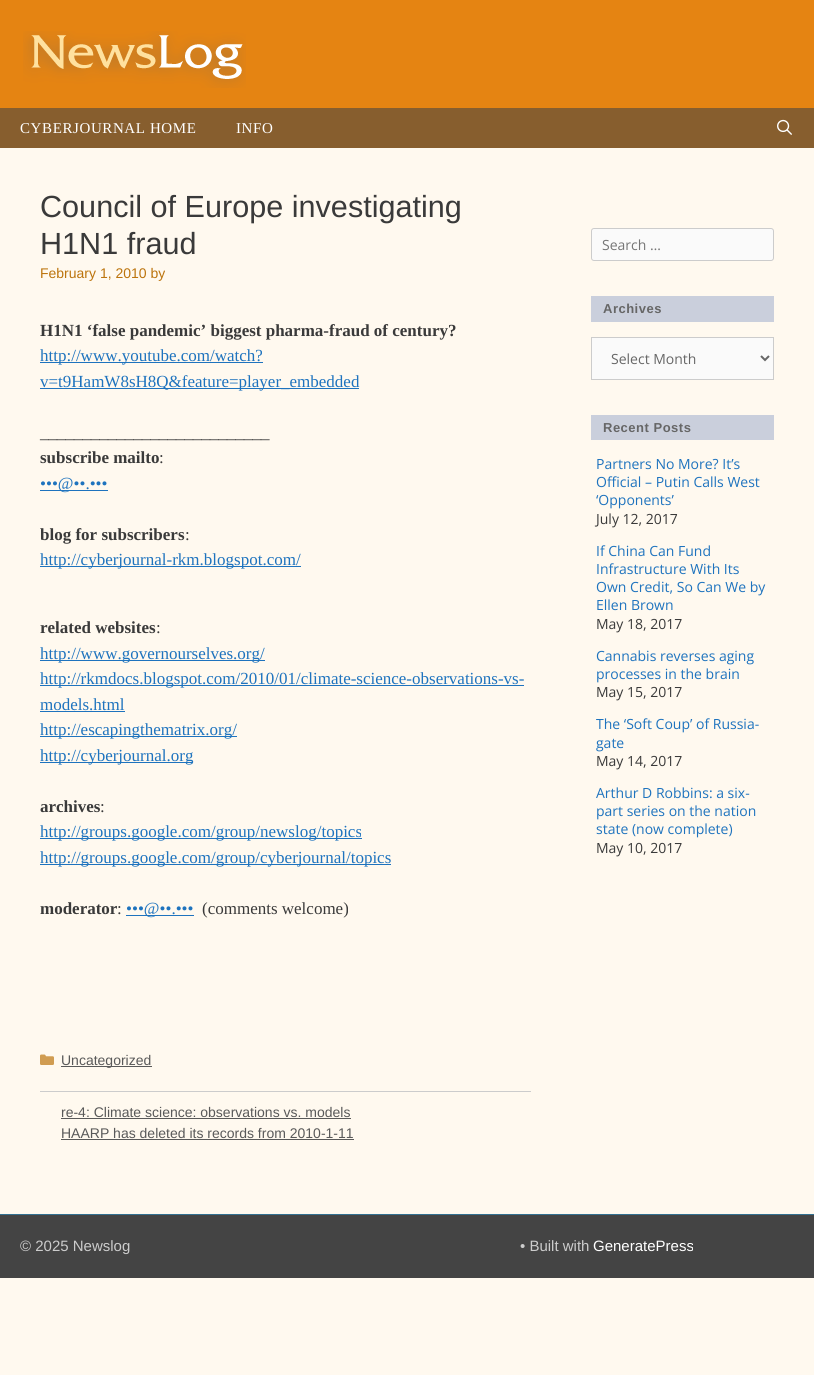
import math
import cairo

surface = cairo.ImageSurface(cairo.FORMAT_RGB24, 814, 1375)
ctx = cairo.Context(surface)
options = cairo.FontOptions()
options.set_hint_metrics(cairo.HINT_METRICS_OFF)
options.set_hint_style(cairo.HINT_STYLE_NONE)
ctx.set_font_options(options)
ctx.set_miter_limit(4)


def spaced_text(x, y, s, letter, word):
    ctx.move_to(x, y)
    for ch in s:
        ctx.show_text(ch)
        ctx.rel_move_to(letter + word * (ch == ' '), 0)


def round_rect(x, y, w, h, r):
    ctx.new_sub_path()
    for i, (u, v) in enumerate([(x + w - r, y + h - r), (x + r, y + h - r), (x + r, y + r), (x + w - r, y + r)]):
        ctx.arc(u, v, r, i * math.pi / 2, (i + 1) * math.pi / 2)
    ctx.close_path()


def picture(path, x, y, w, h):
    ctx.save()
    ctx.set_source_surface(cairo.ImageSurface.create_from_png(path), x, y)
    ctx.rectangle(x, y, w, h)
    ctx.fill()
    ctx.restore()


ctx.set_source_rgb(1, 0.976, 0.937)
ctx.paint()
ctx.set_source_rgb(0.898, 0.518, 0.071)
ctx.rectangle(0, 0, 814, 108)
ctx.fill()
picture("img1.png", 23, 31, 223, 57)
ctx.set_source_rgb(0.529, 0.369, 0.18)
ctx.rectangle(0, 108, 814, 40)
ctx.fill()
ctx.select_font_face("Liberation Serif")
ctx.set_font_size(15)
ctx.set_source_rgb(1, 1, 1)
spaced_text(20, 133, "CYBERJOURNAL HOME", 0.6, 0)
spaced_text(236, 133, "INFO", 0.6, 0)
picture("img2.png", 777, 119, 15, 16)
ctx.select_font_face("Liberation Sans")
ctx.set_font_size(30.6)
ctx.set_source_rgb(0.227, 0.227, 0.227)
ctx.move_to(40, 217)
ctx.show_text("Council of Europe investigating")
ctx.move_to(40, 254)
ctx.show_text("H1N1 fraud")
ctx.set_font_size(14)
ctx.set_source_rgb(0.737, 0.455, 0.051)
ctx.move_to(40, 278)
ctx.show_text("February 1, 2010 by")
ctx.select_font_face("Liberation Serif", cairo.FONT_SLANT_NORMAL, cairo.FONT_WEIGHT_BOLD)
ctx.set_font_size(17)
ctx.set_source_rgb(0.227, 0.227, 0.227)
ctx.move_to(40, 336)
ctx.show_text("H1N1 ‘false pandemic’ biggest pharma-fraud of century?")
ctx.set_source_rgb(0.118, 0.451, 0.745)
ctx.rectangle(40, 362, 223, 1)
ctx.fill()
ctx.select_font_face("Liberation Serif")
ctx.move_to(40, 361)
ctx.show_text("http://www.youtube.com/watch?")
ctx.rectangle(40, 388, 319, 1)
ctx.fill()
ctx.move_to(40, 387)
ctx.show_text("v=t9HamW8sH8Q&feature=player_embedded")
ctx.set_source_rgb(0.227, 0.227, 0.227)
ctx.move_to(40, 438)
ctx.show_text("___________________________")
ctx.select_font_face("Liberation Serif", cairo.FONT_SLANT_NORMAL, cairo.FONT_WEIGHT_BOLD)
ctx.move_to(40, 463)
ctx.show_text("subscribe mailto")
ctx.select_font_face("Liberation Serif")
ctx.move_to(159, 463)
ctx.show_text(":")
ctx.set_source_rgb(0.118, 0.451, 0.745)
ctx.rectangle(40, 490, 68, 1)
ctx.fill()
ctx.move_to(40, 489)
ctx.show_text("•••@••.•••")
ctx.select_font_face("Liberation Serif", cairo.FONT_SLANT_NORMAL, cairo.FONT_WEIGHT_BOLD)
ctx.set_source_rgb(0.227, 0.227, 0.227)
ctx.move_to(40, 540)
ctx.show_text("blog for subscribers")
ctx.select_font_face("Liberation Serif")
ctx.move_to(185, 540)
ctx.show_text(":")
ctx.set_source_rgb(0.118, 0.451, 0.745)
ctx.rectangle(40, 566, 261, 1)
ctx.fill()
ctx.move_to(40, 565)
ctx.show_text("http://cyberjournal-rkm.blogspot.com/")
ctx.select_font_face("Liberation Serif", cairo.FONT_SLANT_NORMAL, cairo.FONT_WEIGHT_BOLD)
ctx.set_source_rgb(0.227, 0.227, 0.227)
ctx.move_to(40, 633)
ctx.show_text("related websites")
ctx.select_font_face("Liberation Serif")
ctx.move_to(156, 633)
ctx.show_text(":")
ctx.set_source_rgb(0.118, 0.451, 0.745)
ctx.rectangle(40, 660, 225, 1)
ctx.fill()
ctx.move_to(40, 659)
ctx.show_text("http://www.governourselves.org/")
ctx.rectangle(40, 685, 484, 1)
ctx.fill()
ctx.move_to(40, 684)
ctx.show_text("http://rkmdocs.blogspot.com/2010/01/climate-science-observations-vs-")
ctx.move_to(40, 710)
ctx.show_text("models.html")
ctx.rectangle(40, 711, 85, 1)
ctx.fill()
ctx.rectangle(40, 736, 197, 1)
ctx.fill()
ctx.move_to(40, 735)
ctx.show_text("http://escapingthematrix.org/")
ctx.rectangle(40, 762, 153, 1)
ctx.fill()
ctx.move_to(40, 761)
ctx.show_text("http://cyberjournal.org")
ctx.select_font_face("Liberation Serif", cairo.FONT_SLANT_NORMAL, cairo.FONT_WEIGHT_BOLD)
ctx.set_source_rgb(0.227, 0.227, 0.227)
ctx.move_to(40, 812)
ctx.show_text("archives")
ctx.select_font_face("Liberation Serif")
ctx.move_to(100, 812)
ctx.show_text(":")
ctx.set_source_rgb(0.118, 0.451, 0.745)
ctx.rectangle(40, 838, 322, 1)
ctx.fill()
ctx.move_to(40, 837)
ctx.show_text("http://groups.google.com/group/newslog/topics")
ctx.rectangle(40, 864, 351, 1)
ctx.fill()
ctx.move_to(40, 863)
ctx.show_text("http://groups.google.com/group/cyberjournal/topics")
ctx.select_font_face("Liberation Serif", cairo.FONT_SLANT_NORMAL, cairo.FONT_WEIGHT_BOLD)
ctx.set_source_rgb(0.227, 0.227, 0.227)
ctx.move_to(40, 914)
ctx.show_text("moderator")
ctx.select_font_face("Liberation Serif")
ctx.move_to(117, 914)
ctx.show_text(":")
ctx.set_source_rgb(0.118, 0.451, 0.745)
ctx.rectangle(126, 915, 68, 1)
ctx.fill()
ctx.move_to(126, 914)
ctx.show_text("•••@••.•••")
ctx.set_source_rgb(0.227, 0.227, 0.227)
ctx.move_to(202, 914)
ctx.show_text("(comments welcome)")
picture("img3.png", 40, 1054, 14, 11)
ctx.set_source_rgb(0.349, 0.349, 0.349)
ctx.rectangle(61, 1066, 91, 1)
ctx.fill()
ctx.select_font_face("Liberation Sans")
ctx.set_font_size(14)
ctx.move_to(61, 1065)
ctx.show_text("Uncategorized")
ctx.set_source_rgb(0.8, 0.8, 0.8)
ctx.rectangle(40, 1091, 491, 1)
ctx.fill()
ctx.set_source_rgb(0.349, 0.349, 0.349)
ctx.move_to(61, 1117)
ctx.show_text("re-4: Climate science: observations vs. models")
ctx.rectangle(61, 1118, 290, 1)
ctx.fill()
ctx.move_to(61, 1138)
ctx.show_text("HAARP has deleted its records from 2010-1-11")
ctx.rectangle(61, 1139, 293, 1)
ctx.fill()
ctx.set_source_rgb(0.98, 0.98, 0.98)
round_rect(591.5, 228.5, 182, 32, 2.5)
ctx.fill_preserve()
ctx.set_source_rgb(0.8, 0.8, 0.8)
ctx.set_line_width(1)
ctx.stroke()
ctx.select_font_face("Open Sans")
ctx.set_source_rgb(0.459, 0.459, 0.459)
ctx.move_to(602, 250)
ctx.show_text("Search …")
ctx.set_source_rgb(0.792, 0.812, 0.863)
ctx.rectangle(591, 296, 183, 26)
ctx.fill()
ctx.select_font_face("Liberation Sans", cairo.FONT_SLANT_NORMAL, cairo.FONT_WEIGHT_BOLD)
ctx.set_font_size(13)
ctx.set_source_rgb(0.4, 0.4, 0.4)
spaced_text(603, 313, "Archives", 0.5, 0)
ctx.set_source_rgb(0.98, 0.98, 0.98)
ctx.rectangle(591.5, 337.5, 182, 42)
ctx.fill_preserve()
ctx.set_source_rgb(0.8, 0.8, 0.8)
ctx.stroke()
ctx.new_path()
ctx.move_to(761, 356)
ctx.line_to(765, 360)
ctx.line_to(769, 356)
ctx.set_source_rgb(0.4, 0.4, 0.4)
ctx.set_line_width(2)
ctx.stroke()
ctx.select_font_face("Open Sans")
ctx.set_font_size(14)
ctx.move_to(611, 364)
ctx.show_text("Select Month")
ctx.set_source_rgb(0.792, 0.812, 0.863)
ctx.rectangle(591, 415, 183, 25)
ctx.fill()
ctx.select_font_face("Liberation Sans", cairo.FONT_SLANT_NORMAL, cairo.FONT_WEIGHT_BOLD)
ctx.set_font_size(13)
ctx.set_source_rgb(0.4, 0.4, 0.4)
spaced_text(603, 432, "Recent Posts", 0.5, 0)
ctx.select_font_face("Open Sans")
ctx.set_font_size(14)
ctx.set_source_rgb(0.118, 0.451, 0.745)
ctx.move_to(596, 469)
ctx.show_text("Partners No More? It’s")
ctx.move_to(596, 487)
ctx.show_text("Official – Putin Calls West")
ctx.move_to(596, 505)
ctx.show_text("‘Opponents’")
ctx.set_source_rgb(0.227, 0.227, 0.227)
ctx.move_to(596, 524)
ctx.show_text("July 12, 2017")
ctx.set_source_rgb(0.118, 0.451, 0.745)
ctx.move_to(596, 556)
ctx.show_text("If China Can Fund")
ctx.move_to(596, 574)
ctx.show_text("Infrastructure With Its")
ctx.move_to(596, 592)
ctx.show_text("Own Credit, So Can We by")
ctx.move_to(596, 610)
ctx.show_text("Ellen Brown")
ctx.set_source_rgb(0.227, 0.227, 0.227)
ctx.move_to(596, 629)
ctx.show_text("May 18, 2017")
ctx.set_source_rgb(0.118, 0.451, 0.745)
ctx.move_to(596, 661)
ctx.show_text("Cannabis reverses aging")
ctx.move_to(596, 679)
ctx.show_text("processes in the brain")
ctx.set_source_rgb(0.227, 0.227, 0.227)
ctx.move_to(596, 697)
ctx.show_text("May 15, 2017")
ctx.set_source_rgb(0.118, 0.451, 0.745)
ctx.move_to(596, 729)
ctx.show_text("The ‘Soft Coup’ of Russia-")
ctx.move_to(596, 748)
ctx.show_text("gate")
ctx.set_source_rgb(0.227, 0.227, 0.227)
ctx.move_to(596, 766)
ctx.show_text("May 14, 2017")
ctx.set_source_rgb(0.118, 0.451, 0.745)
ctx.move_to(596, 798)
ctx.show_text("Arthur D Robbins: a six-")
ctx.move_to(596, 816)
ctx.show_text("part series on the nation")
ctx.move_to(596, 834)
ctx.show_text("state (now complete)")
ctx.set_source_rgb(0.227, 0.227, 0.227)
ctx.move_to(596, 853)
ctx.show_text("May 10, 2017")
ctx.set_source_rgb(0.267, 0.267, 0.267)
ctx.rectangle(0, 1215, 814, 63)
ctx.fill()
ctx.set_source_rgb(0.2, 0.443, 0.569)
ctx.rectangle(0, 1214, 814, 1)
ctx.fill()
ctx.select_font_face("Liberation Sans")
ctx.set_font_size(15)
ctx.set_source_rgb(0.8, 0.8, 0.8)
ctx.move_to(20, 1251)
ctx.show_text("© 2025 Newslog")
ctx.move_to(520, 1251)
ctx.show_text("• Built with")
ctx.set_source_rgb(1, 1, 1)
ctx.move_to(593, 1251)
ctx.show_text("GeneratePress")
surface.write_to_png("page.png")
